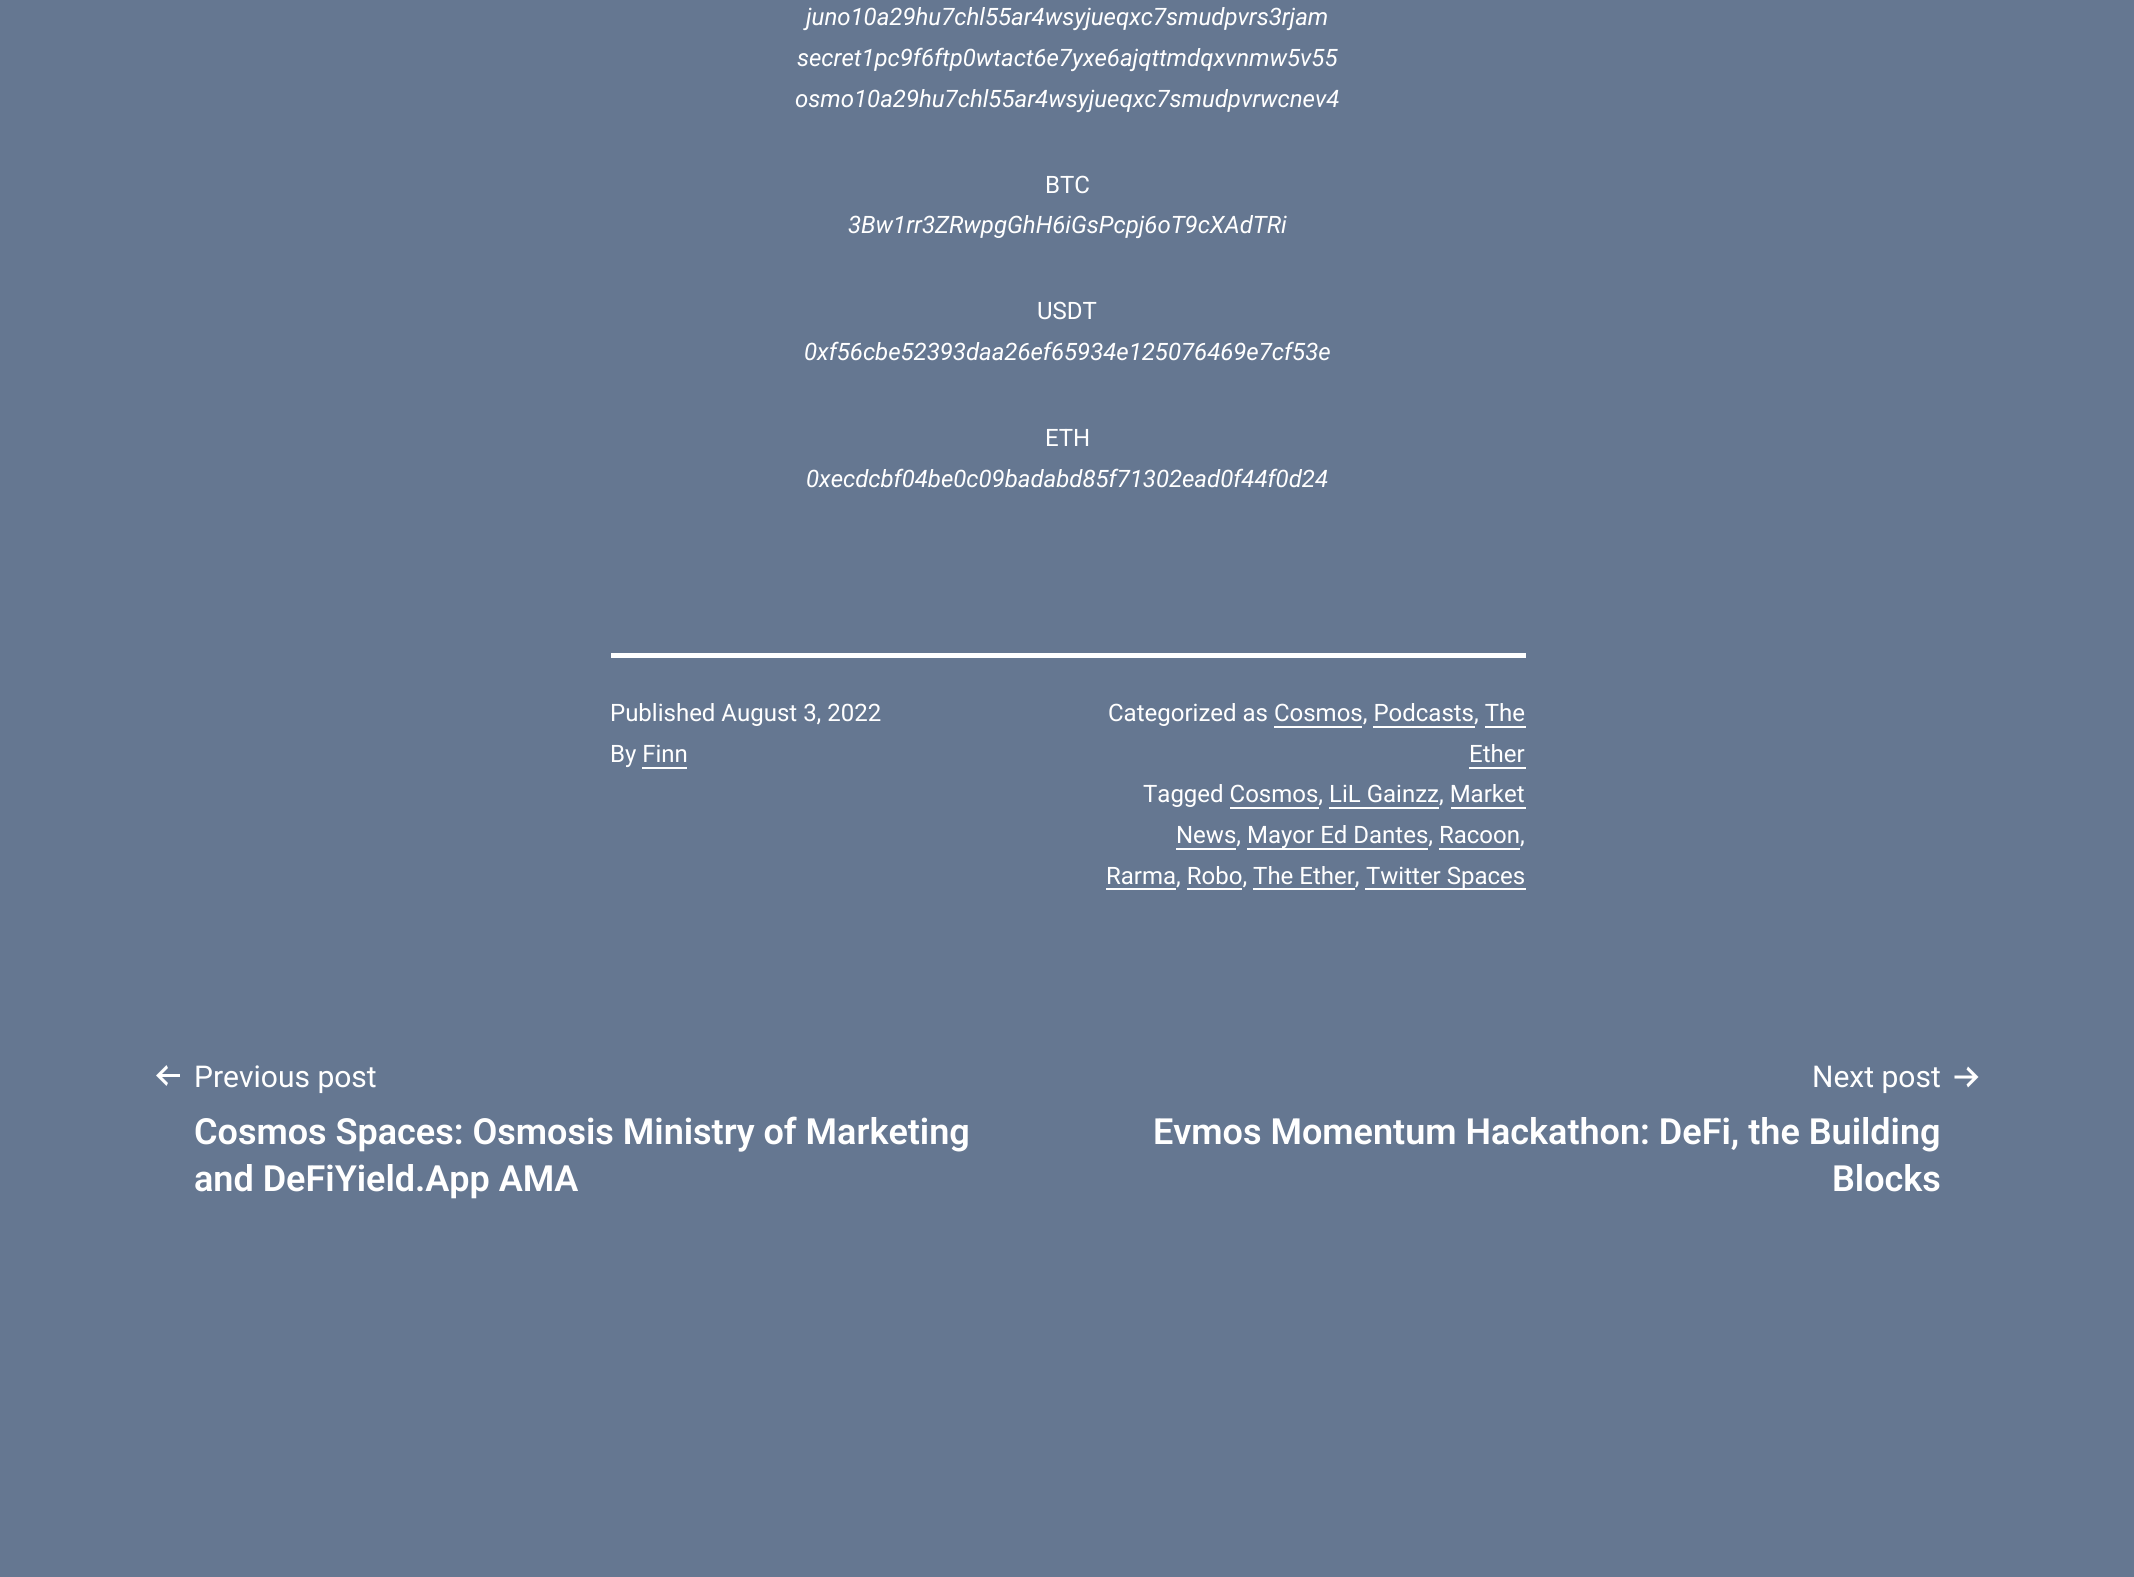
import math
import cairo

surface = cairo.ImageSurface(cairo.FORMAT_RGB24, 2134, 1577)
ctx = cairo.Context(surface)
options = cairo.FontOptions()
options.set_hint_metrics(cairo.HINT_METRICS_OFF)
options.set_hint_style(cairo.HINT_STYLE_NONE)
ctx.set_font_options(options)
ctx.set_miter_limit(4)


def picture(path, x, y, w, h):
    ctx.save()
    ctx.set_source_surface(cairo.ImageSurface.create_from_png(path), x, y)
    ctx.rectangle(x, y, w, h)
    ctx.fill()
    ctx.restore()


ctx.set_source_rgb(0.396, 0.467, 0.569)
ctx.paint()
ctx.select_font_face("Roboto", cairo.FONT_SLANT_ITALIC)
ctx.set_font_size(24)
ctx.set_source_rgb(1, 1, 1)
ctx.move_to(806, 25)
ctx.show_text("juno10a29hu7chl55ar4wsyjueqxc7smudpvrs3rjam")
ctx.move_to(797, 66)
ctx.show_text("secret1pc9f6ftp0wtact6e7yxe6ajqttmdqxvnmw5v55")
ctx.move_to(795, 107)
ctx.show_text("osmo10a29hu7chl55ar4wsyjueqxc7smudpvrwcnev4")
ctx.select_font_face("Roboto")
ctx.move_to(1045, 193)
ctx.show_text("BTC")
ctx.select_font_face("Roboto", cairo.FONT_SLANT_ITALIC)
ctx.move_to(848, 233)
ctx.show_text("3Bw1rr3ZRwpgGhH6iGsPcpj6oT9cXAdTRi")
ctx.select_font_face("Roboto")
ctx.move_to(1037, 319)
ctx.show_text("USDT")
ctx.select_font_face("Roboto", cairo.FONT_SLANT_ITALIC)
ctx.move_to(804, 360)
ctx.show_text("0xf56cbe52393daa26ef65934e125076469e7cf53e")
ctx.select_font_face("Roboto")
ctx.move_to(1045, 446)
ctx.show_text("ETH")
ctx.select_font_face("Roboto", cairo.FONT_SLANT_ITALIC)
ctx.move_to(806, 487)
ctx.show_text("0xecdcbf04be0c09badabd85f71302ead0f44f0d24")
ctx.rectangle(611, 653, 915, 5)
ctx.fill()
ctx.select_font_face("Roboto")
ctx.move_to(610, 721)
ctx.show_text("Published August 3, 2022")
ctx.move_to(610, 762)
ctx.show_text("By Finn")
ctx.rectangle(642, 767, 45, 2)
ctx.fill()
ctx.move_to(1108, 721)
ctx.show_text("Categorized as Cosmos, Podcasts, The")
ctx.rectangle(1274, 726, 88, 2)
ctx.fill()
ctx.rectangle(1373, 726, 102, 2)
ctx.fill()
ctx.move_to(1469, 762)
ctx.show_text("Ether")
ctx.rectangle(1485, 726, 41, 2)
ctx.fill()
ctx.rectangle(1469, 767, 57, 2)
ctx.fill()
ctx.move_to(1143, 802)
ctx.show_text("Tagged Cosmos, LiL Gainzz, Market")
ctx.rectangle(1230, 807, 89, 2)
ctx.fill()
ctx.rectangle(1329, 807, 110, 2)
ctx.fill()
ctx.move_to(1176, 843)
ctx.show_text("News,")
ctx.rectangle(1451, 807, 75, 2)
ctx.fill()
ctx.rectangle(1176, 848, 60, 2)
ctx.fill()
ctx.rectangle(1247, 848, 181, 2)
ctx.fill()
ctx.move_to(1247, 843)
ctx.show_text("Mayor Ed Dantes, Racoon,")
ctx.rectangle(1439, 848, 81, 2)
ctx.fill()
ctx.move_to(1106, 884)
ctx.show_text("Rarma, Robo, The Ether,")
ctx.rectangle(1106, 888, 70, 2)
ctx.fill()
ctx.rectangle(1365, 888, 161, 2)
ctx.fill()
ctx.move_to(1366, 884)
ctx.show_text("Twitter Spaces")
ctx.rectangle(1187, 888, 55, 2)
ctx.fill()
ctx.rectangle(1253, 888, 102, 2)
ctx.fill()
picture("img1.png", 156, 1065, 24, 21)
ctx.set_font_size(30)
ctx.move_to(194, 1087)
ctx.show_text("Previous post")
ctx.select_font_face("Roboto SemiBold")
ctx.set_font_size(36)
ctx.move_to(194, 1144)
ctx.show_text("Cosmos Spaces: Osmosis Ministry of Marketing")
ctx.move_to(194, 1191)
ctx.show_text("and DeFiYield.App AMA")
ctx.select_font_face("Roboto")
ctx.set_font_size(30)
ctx.move_to(1812, 1087)
ctx.show_text("Next post")
picture("img2.png", 1954, 1066, 25, 22)
ctx.select_font_face("Roboto SemiBold")
ctx.set_font_size(36)
ctx.move_to(1153, 1144)
ctx.show_text("Evmos Momentum Hackathon: DeFi, the Building")
ctx.move_to(1832, 1191)
ctx.show_text("Blocks")
surface.write_to_png("page.png")
